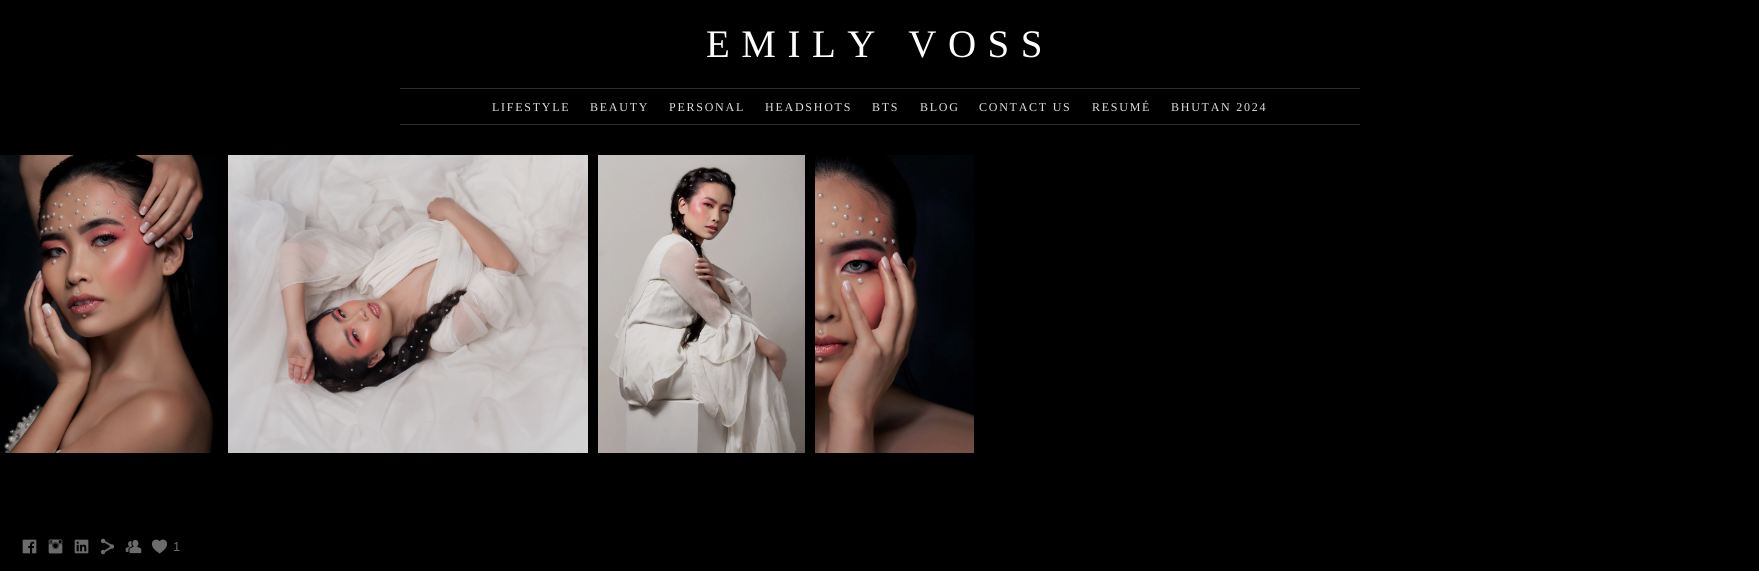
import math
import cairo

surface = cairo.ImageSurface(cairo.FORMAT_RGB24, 1759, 571)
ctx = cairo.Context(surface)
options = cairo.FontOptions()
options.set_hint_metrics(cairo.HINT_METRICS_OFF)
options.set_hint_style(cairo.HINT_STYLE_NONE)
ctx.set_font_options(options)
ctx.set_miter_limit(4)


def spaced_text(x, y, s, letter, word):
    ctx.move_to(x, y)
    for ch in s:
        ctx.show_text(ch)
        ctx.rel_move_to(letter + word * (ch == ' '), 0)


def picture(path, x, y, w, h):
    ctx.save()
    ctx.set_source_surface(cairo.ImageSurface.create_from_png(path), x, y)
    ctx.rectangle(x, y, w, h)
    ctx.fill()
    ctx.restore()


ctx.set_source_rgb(0, 0, 0)
ctx.paint()
ctx.select_font_face("Liberation Serif")
ctx.set_font_size(39)
ctx.set_source_rgb(1, 1, 1)
spaced_text(706, 57, "EMILY VOSS", 11.5, 0)
ctx.set_source_rgb(0.176, 0.176, 0.176)
ctx.rectangle(400, 88, 960, 1)
ctx.fill()
ctx.rectangle(400, 124, 960, 1)
ctx.fill()
ctx.set_font_size(12)
ctx.set_source_rgb(0.878, 0.878, 0.878)
spaced_text(492, 111, "LIFESTYLE", 1.75, 0)
spaced_text(590, 111, "BEAUTY", 1.75, 0)
spaced_text(669, 111, "PERSONAL", 1.75, 0)
spaced_text(765, 111, "HEADSHOTS", 1.75, 0)
spaced_text(872, 111, "BTS", 1.75, 0)
spaced_text(920, 111, "BLOG", 1.75, 0)
spaced_text(979, 111, "CONTACT US", 1.75, 0)
spaced_text(1092, 111, "RESUMÉ", 1.75, 0)
spaced_text(1171, 111, "BHUTAN 2024", 1.75, 0)
picture("img1.png", 0, 155, 218, 298)
picture("img2.png", 228, 155, 360, 298)
picture("img3.png", 598, 155, 207, 298)
picture("img4.png", 815, 155, 159, 298)
picture("img5.png", 22, 539, 15, 15)
picture("img6.png", 48, 539, 15, 15)
picture("img7.png", 74, 539, 15, 15)
picture("img8.png", 100, 538, 15, 17)
picture("img9.png", 125, 539, 17, 15)
picture("img10.png", 151, 539, 17, 15)
ctx.select_font_face("Liberation Sans")
ctx.set_font_size(13)
ctx.set_source_rgb(0.42, 0.42, 0.42)
ctx.move_to(173, 551)
ctx.show_text("1")
surface.write_to_png("page.png")
